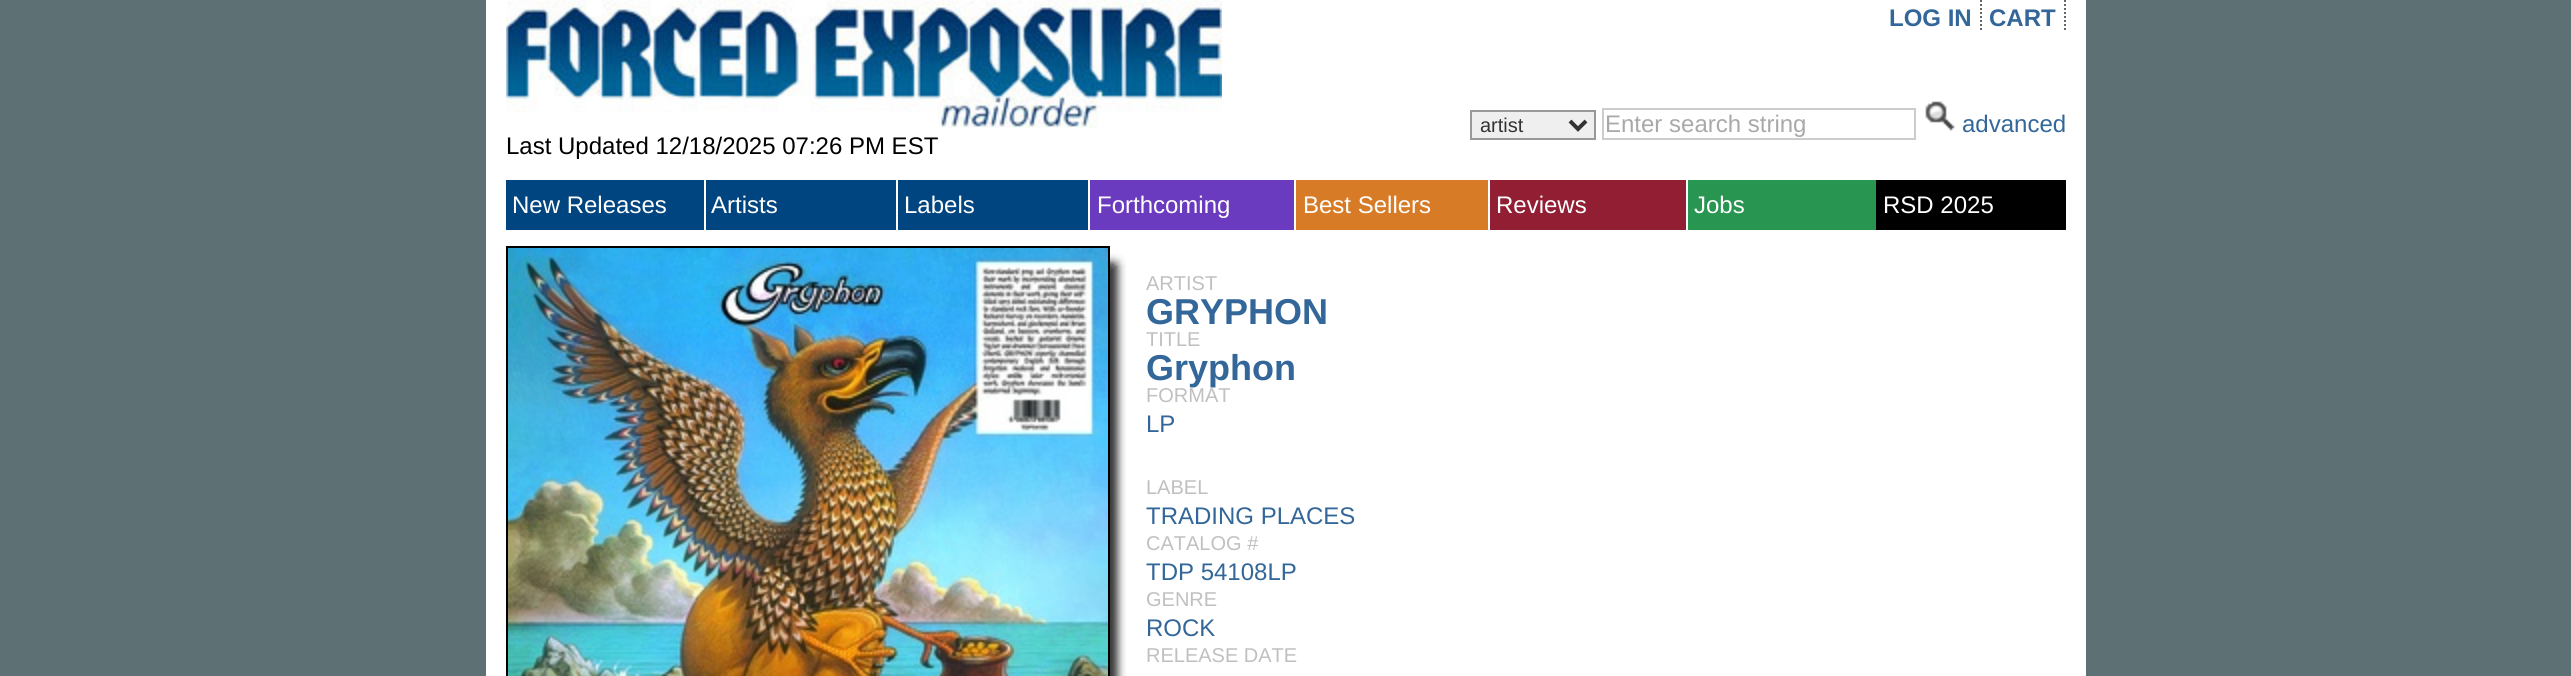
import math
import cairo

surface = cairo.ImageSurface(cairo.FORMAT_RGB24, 2571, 676)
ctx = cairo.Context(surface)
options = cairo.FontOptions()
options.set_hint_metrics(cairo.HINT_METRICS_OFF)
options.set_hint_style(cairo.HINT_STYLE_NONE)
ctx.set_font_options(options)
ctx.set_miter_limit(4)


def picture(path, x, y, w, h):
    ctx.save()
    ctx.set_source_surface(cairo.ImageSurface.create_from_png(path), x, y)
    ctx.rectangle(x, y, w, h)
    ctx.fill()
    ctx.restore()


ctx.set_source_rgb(0.365, 0.439, 0.451)
ctx.paint()
ctx.set_source_rgb(1, 1, 1)
ctx.rectangle(486, 0, 1600, 676)
ctx.fill()
ctx.new_path()
ctx.move_to(1981, 0)
ctx.line_to(1981, 32)
ctx.set_source_rgb(0.4, 0.4, 0.4)
ctx.set_dash([2, 2])
ctx.stroke()
ctx.select_font_face("Liberation Sans", cairo.FONT_SLANT_NORMAL, cairo.FONT_WEIGHT_BOLD)
ctx.set_font_size(24)
ctx.set_source_rgb(0.2, 0.4, 0.6)
ctx.move_to(1889, 26)
ctx.show_text("LOG IN")
ctx.new_path()
ctx.move_to(2065, 0)
ctx.line_to(2065, 32)
ctx.set_source_rgb(0.4, 0.4, 0.4)
ctx.stroke()
ctx.set_source_rgb(0.2, 0.4, 0.6)
ctx.move_to(1989, 26)
ctx.show_text("CART")
ctx.set_source_rgb(0.937, 0.937, 0.937)
ctx.rectangle(1471, 111, 124, 28)
ctx.fill_preserve()
ctx.set_source_rgb(0.6, 0.6, 0.6)
ctx.set_dash([])
ctx.stroke()
ctx.new_path()
ctx.move_to(1570, 121)
ctx.line_to(1578, 129)
ctx.line_to(1586, 121)
ctx.set_source_rgb(0.2, 0.2, 0.2)
ctx.set_line_width(4)
ctx.stroke()
ctx.select_font_face("Liberation Sans")
ctx.set_font_size(20)
ctx.move_to(1480, 132)
ctx.show_text("artist")
ctx.rectangle(1603, 109, 312, 30)
ctx.set_source_rgb(0.8, 0.8, 0.8)
ctx.set_line_width(2)
ctx.stroke()
ctx.set_font_size(24)
ctx.set_source_rgb(0.663, 0.663, 0.663)
ctx.move_to(1605, 132)
ctx.show_text("Enter search string")
picture("img1.png", 1925, 101, 30, 30)
ctx.set_source_rgb(0.2, 0.4, 0.6)
ctx.move_to(1962, 132)
ctx.show_text("advanced")
picture("img2.png", 506, 0, 716, 129)
ctx.set_source_rgb(0, 0, 0)
ctx.move_to(506, 154)
ctx.show_text("Last Updated 12/18/2025 07:26 PM EST")
ctx.set_source_rgb(0, 0.271, 0.502)
ctx.rectangle(506, 180, 198, 50)
ctx.fill()
ctx.set_source_rgb(1, 1, 1)
ctx.move_to(512, 213)
ctx.show_text("New Releases")
ctx.set_source_rgb(0, 0.271, 0.502)
ctx.rectangle(706, 180, 190, 50)
ctx.fill()
ctx.set_source_rgb(1, 1, 1)
ctx.move_to(711, 213)
ctx.show_text("Artists")
ctx.set_source_rgb(0, 0.271, 0.502)
ctx.rectangle(898, 180, 190, 50)
ctx.fill()
ctx.set_source_rgb(1, 1, 1)
ctx.move_to(904, 213)
ctx.show_text("Labels")
ctx.set_source_rgb(0.42, 0.231, 0.749)
ctx.rectangle(1090, 180, 204, 50)
ctx.fill()
ctx.set_source_rgb(1, 1, 1)
ctx.move_to(1097, 213)
ctx.show_text("Forthcoming")
ctx.set_source_rgb(0.847, 0.482, 0.153)
ctx.rectangle(1296, 180, 192, 50)
ctx.fill()
ctx.set_source_rgb(1, 1, 1)
ctx.move_to(1303, 213)
ctx.show_text("Best Sellers")
ctx.set_source_rgb(0.569, 0.118, 0.196)
ctx.rectangle(1490, 180, 196, 50)
ctx.fill()
ctx.set_source_rgb(1, 1, 1)
ctx.move_to(1496, 213)
ctx.show_text("Reviews")
ctx.set_source_rgb(0.157, 0.584, 0.318)
ctx.rectangle(1688, 180, 188, 50)
ctx.fill()
ctx.set_source_rgb(1, 1, 1)
ctx.move_to(1694, 213)
ctx.show_text("Jobs")
ctx.set_source_rgb(0, 0, 0)
ctx.rectangle(1876, 180, 190, 50)
ctx.fill()
ctx.set_source_rgb(1, 1, 1)
ctx.move_to(1883, 213)
ctx.show_text("RSD 2025")
picture("img3.png", 1110, 270, 16, 406)
picture("img4.png", 1110, 246, 16, 24)
ctx.rectangle(507, 247, 602, 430)
ctx.set_source_rgb(0, 0, 0)
ctx.stroke()
picture("img5.png", 508, 248, 600, 428)
ctx.set_font_size(20)
ctx.set_source_rgb(0.753, 0.753, 0.753)
ctx.move_to(1146, 290)
ctx.show_text("ARTIST")
ctx.select_font_face("Liberation Sans", cairo.FONT_SLANT_NORMAL, cairo.FONT_WEIGHT_BOLD)
ctx.set_font_size(36)
ctx.set_source_rgb(0.2, 0.4, 0.6)
ctx.move_to(1146, 324)
ctx.show_text("GRYPHON")
ctx.select_font_face("Liberation Sans")
ctx.set_font_size(20)
ctx.set_source_rgb(0.753, 0.753, 0.753)
ctx.move_to(1146, 346)
ctx.show_text("TITLE")
ctx.select_font_face("Liberation Sans", cairo.FONT_SLANT_NORMAL, cairo.FONT_WEIGHT_BOLD)
ctx.set_font_size(36)
ctx.set_source_rgb(0.2, 0.4, 0.6)
ctx.move_to(1146, 380)
ctx.show_text("Gryphon")
ctx.select_font_face("Liberation Sans")
ctx.set_font_size(20)
ctx.set_source_rgb(0.753, 0.753, 0.753)
ctx.move_to(1146, 402)
ctx.show_text("FORMAT")
ctx.set_font_size(24)
ctx.set_source_rgb(0.2, 0.4, 0.6)
ctx.move_to(1146, 432)
ctx.show_text("LP")
ctx.set_font_size(20)
ctx.set_source_rgb(0.753, 0.753, 0.753)
ctx.move_to(1146, 494)
ctx.show_text("LABEL")
ctx.set_font_size(24)
ctx.set_source_rgb(0.2, 0.4, 0.6)
ctx.move_to(1146, 524)
ctx.show_text("TRADING PLACES")
ctx.set_font_size(20)
ctx.set_source_rgb(0.753, 0.753, 0.753)
ctx.move_to(1146, 550)
ctx.show_text("CATALOG #")
ctx.set_font_size(24)
ctx.set_source_rgb(0.2, 0.4, 0.6)
ctx.move_to(1146, 580)
ctx.show_text("TDP 54108LP")
ctx.set_font_size(20)
ctx.set_source_rgb(0.753, 0.753, 0.753)
ctx.move_to(1146, 606)
ctx.show_text("GENRE")
ctx.set_font_size(24)
ctx.set_source_rgb(0.2, 0.4, 0.6)
ctx.move_to(1146, 636)
ctx.show_text("ROCK")
ctx.set_font_size(20)
ctx.set_source_rgb(0.753, 0.753, 0.753)
ctx.move_to(1146, 662)
ctx.show_text("RELEASE DATE")
surface.write_to_png("page.png")
